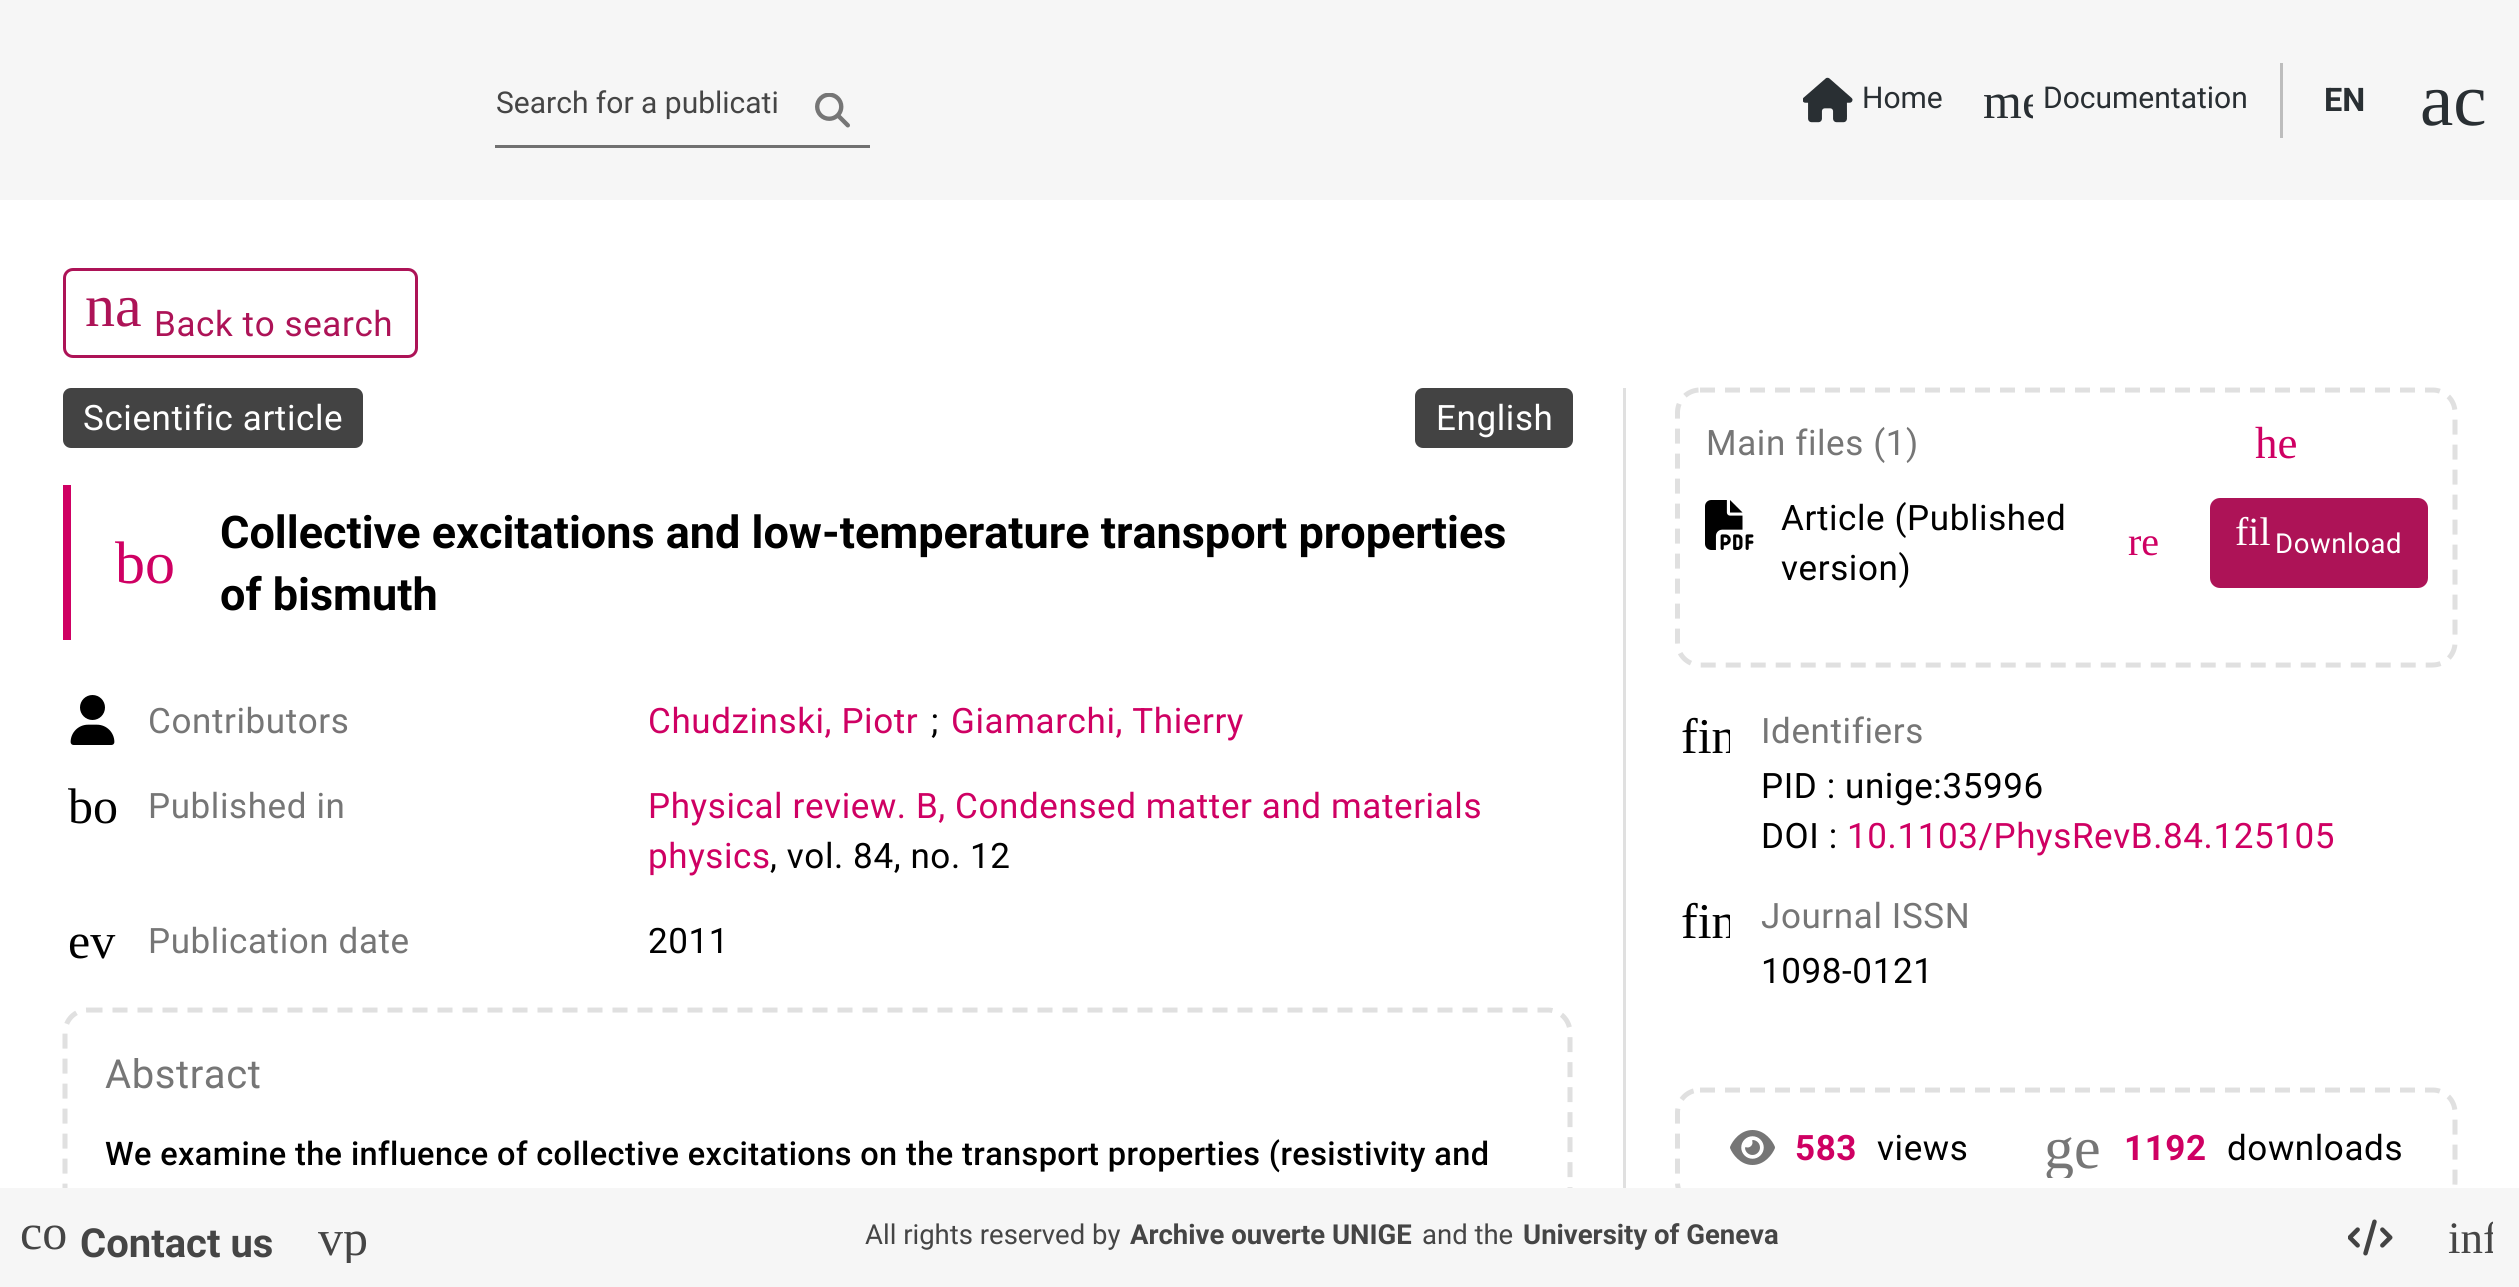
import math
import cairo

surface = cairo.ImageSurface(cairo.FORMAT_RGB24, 2519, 1287)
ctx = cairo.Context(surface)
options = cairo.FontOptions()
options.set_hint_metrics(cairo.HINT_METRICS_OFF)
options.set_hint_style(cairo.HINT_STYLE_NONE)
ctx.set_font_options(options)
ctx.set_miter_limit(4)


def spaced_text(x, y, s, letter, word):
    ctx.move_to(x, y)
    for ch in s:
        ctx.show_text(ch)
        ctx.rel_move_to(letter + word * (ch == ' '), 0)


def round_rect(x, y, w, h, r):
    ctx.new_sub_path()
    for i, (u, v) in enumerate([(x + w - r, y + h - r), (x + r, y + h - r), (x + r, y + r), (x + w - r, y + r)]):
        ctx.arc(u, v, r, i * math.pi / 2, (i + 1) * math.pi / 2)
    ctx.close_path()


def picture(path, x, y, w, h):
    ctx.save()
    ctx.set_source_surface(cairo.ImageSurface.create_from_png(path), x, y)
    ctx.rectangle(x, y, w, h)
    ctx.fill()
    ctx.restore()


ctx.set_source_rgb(1, 1, 1)
ctx.paint()
ctx.set_source_rgb(0.961, 0.961, 0.961)
ctx.rectangle(0, 0, 2519, 200)
ctx.fill()
ctx.select_font_face("Roboto")
ctx.set_font_size(30)
ctx.set_source_rgb(0.271, 0.271, 0.271)
ctx.move_to(496, 113)
ctx.show_text("Search for a publicati")
picture("img1.png", 815, 93, 35, 35)
ctx.set_source_rgb(0.443, 0.443, 0.443)
ctx.rectangle(495, 145, 375, 3)
ctx.fill()
picture("img2.png", 1803, 77, 50, 46)
ctx.set_source_rgb(0.161, 0.184, 0.2)
ctx.move_to(1862, 108)
ctx.show_text("Home")
ctx.save()
ctx.rectangle(1983, 75, 50, 50)
ctx.clip()
ctx.select_font_face("Liberation Serif")
ctx.set_font_size(50)
ctx.move_to(1983, 118)
ctx.show_text("me")
ctx.restore()
ctx.move_to(2043, 108)
ctx.show_text("Documentation")
ctx.set_source_rgb(0.741, 0.741, 0.741)
ctx.rectangle(2280, 63, 3, 75)
ctx.fill()
ctx.select_font_face("Roboto", cairo.FONT_SLANT_NORMAL, cairo.FONT_WEIGHT_BOLD)
ctx.set_font_size(32.5)
ctx.set_source_rgb(0.161, 0.184, 0.2)
ctx.move_to(2324, 111)
ctx.show_text("EN")
ctx.select_font_face("Liberation Serif")
ctx.set_font_size(75)
ctx.move_to(2420, 125)
ctx.show_text("ac")
round_rect(64.5, 269.5, 352, 87, 8.5)
ctx.set_source_rgb(0.678, 0.078, 0.341)
ctx.set_line_width(3)
ctx.stroke()
ctx.set_font_size(60)
ctx.move_to(85, 326)
ctx.show_text("na")
ctx.select_font_face("Roboto")
ctx.set_font_size(35)
spaced_text(154, 336, "Back to search", 0.6, 0)
ctx.set_source_rgb(0.878, 0.878, 0.878)
ctx.rectangle(1623, 388, 3, 800)
ctx.fill()
ctx.set_source_rgb(0.263, 0.263, 0.263)
round_rect(63, 388, 300, 60, 8)
ctx.fill()
ctx.set_source_rgb(1, 1, 1)
spaced_text(83, 430, "Scientific article", 0.6, 0)
ctx.set_source_rgb(0.263, 0.263, 0.263)
round_rect(1415, 388, 158, 60, 8)
ctx.fill()
ctx.set_source_rgb(1, 1, 1)
spaced_text(1436, 430, "English", 0.6, 0)
ctx.set_source_rgb(0.812, 0, 0.388)
ctx.rectangle(63, 485, 8, 155)
ctx.fill()
ctx.select_font_face("Liberation Serif")
ctx.set_font_size(60)
ctx.move_to(115, 583)
ctx.show_text("bo")
ctx.select_font_face("Roboto", cairo.FONT_SLANT_NORMAL, cairo.FONT_WEIGHT_BOLD)
ctx.set_font_size(45)
ctx.set_source_rgb(0, 0, 0)
ctx.move_to(220, 548)
ctx.show_text("Collective excitations and low-temperature transport properties")
ctx.move_to(220, 610)
ctx.show_text("of bismuth")
picture("img3.png", 70, 695, 45, 50)
ctx.select_font_face("Roboto")
ctx.set_font_size(35)
ctx.set_source_rgb(0.463, 0.463, 0.463)
spaced_text(148, 733, "Contributors", 0.6, 0)
ctx.set_source_rgb(0.812, 0, 0.388)
spaced_text(648, 733, "Chudzinski, Piotr", 0.6, 0)
ctx.set_source_rgb(0, 0, 0)
spaced_text(931, 733, ";", 0.6, 0)
ctx.set_source_rgb(0.812, 0, 0.388)
spaced_text(951, 733, "Giamarchi, Thierry", 0.6, 0)
ctx.select_font_face("Liberation Serif")
ctx.set_font_size(50)
ctx.set_source_rgb(0, 0, 0)
ctx.move_to(68, 823)
ctx.show_text("bo")
ctx.select_font_face("Roboto")
ctx.set_font_size(35)
ctx.set_source_rgb(0.463, 0.463, 0.463)
spaced_text(148, 818, "Published in", 0.6, 0)
ctx.set_source_rgb(0.812, 0, 0.388)
spaced_text(648, 818, "Physical review. B, Condensed matter and materials", 0.6, 0)
spaced_text(648, 868, "physics", 0.6, 0)
ctx.set_source_rgb(0, 0, 0)
spaced_text(770, 868, ", vol. 84, no. 12", 0.6, 0)
ctx.select_font_face("Liberation Serif")
ctx.set_font_size(50)
ctx.move_to(68, 958)
ctx.show_text("ev")
ctx.select_font_face("Roboto")
ctx.set_font_size(35)
ctx.set_source_rgb(0.463, 0.463, 0.463)
spaced_text(148, 953, "Publication date", 0.6, 0)
ctx.set_source_rgb(0, 0, 0)
spaced_text(648, 953, "2011", 0.6, 0)
ctx.new_path()
ctx.move_to(87.5, 1010)
ctx.line_to(1547.5, 1010)
ctx.curve_to(1560, 1010, 1570, 1020, 1570, 1032.5)
ctx.line_to(1570, 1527.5)
ctx.curve_to(1570, 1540, 1560, 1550, 1547.5, 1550)
ctx.line_to(87.5, 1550)
ctx.curve_to(75, 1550, 65, 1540, 65, 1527.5)
ctx.line_to(65, 1032.5)
ctx.curve_to(65, 1020, 75, 1010, 87.5, 1010)
ctx.close_path()
ctx.set_source_rgb(0.878, 0.878, 0.878)
ctx.set_line_width(5)
ctx.set_dash([15, 10])
ctx.stroke()
ctx.set_font_size(40)
ctx.set_source_rgb(0.463, 0.463, 0.463)
spaced_text(105, 1088, "Abstract", 0.6, 0)
ctx.select_font_face("Roboto Medium")
ctx.set_font_size(32.5)
ctx.set_source_rgb(0, 0, 0)
spaced_text(105, 1165, "We examine the influence of collective excitations on the transport properties (resistivity and", 0.4, 0)
ctx.new_path()
ctx.move_to(1700, 390)
ctx.line_to(2432.5, 390)
ctx.curve_to(2445, 390, 2455, 400, 2455, 412.5)
ctx.line_to(2455, 642.5)
ctx.curve_to(2455, 655, 2445, 665, 2432.5, 665)
ctx.line_to(1700, 665)
ctx.curve_to(1687.5, 665, 1677.5, 655, 1677.5, 642.5)
ctx.line_to(1677.5, 412.5)
ctx.curve_to(1677.5, 400, 1687.5, 390, 1700, 390)
ctx.close_path()
ctx.set_source_rgb(0.878, 0.878, 0.878)
ctx.stroke()
ctx.select_font_face("Roboto")
ctx.set_font_size(35)
ctx.set_source_rgb(0.463, 0.463, 0.463)
spaced_text(1706, 455, "Main files (1)", 0.6, 0)
ctx.select_font_face("Liberation Serif")
ctx.set_font_size(45)
ctx.set_source_rgb(0.812, 0, 0.388)
ctx.move_to(2255, 458)
ctx.show_text("he")
picture("img4.png", 1705, 500, 49, 50)
ctx.select_font_face("Roboto")
ctx.set_font_size(35)
ctx.set_source_rgb(0, 0, 0)
spaced_text(1781, 530, "Article (Published", 0.6, 0)
spaced_text(1781, 580, "version)", 0.6, 0)
ctx.select_font_face("Liberation Serif")
ctx.set_font_size(40)
ctx.set_source_rgb(0.812, 0, 0.388)
ctx.move_to(2128, 555)
ctx.show_text("re")
ctx.set_source_rgb(0.678, 0.078, 0.341)
round_rect(2210, 498, 218, 90, 10)
ctx.fill()
ctx.set_source_rgb(1, 1, 1)
ctx.move_to(2235, 545)
ctx.show_text("fil")
ctx.select_font_face("Roboto")
ctx.set_font_size(27.5)
spaced_text(2275, 553, "Download", 0.6, 0)
ctx.save()
ctx.rectangle(1680, 710, 50, 50)
ctx.clip()
ctx.select_font_face("Liberation Serif")
ctx.set_font_size(50)
ctx.set_source_rgb(0, 0, 0)
ctx.move_to(1681, 753)
ctx.show_text("fin")
ctx.restore()
ctx.set_font_size(35)
ctx.set_source_rgb(0.463, 0.463, 0.463)
spaced_text(1761, 743, "Identifiers", 0.6, 0)
ctx.set_source_rgb(0, 0, 0)
spaced_text(1761, 798, "PID : unige:35996", 0.6, 0)
spaced_text(1761, 848, "DOI :", 0.6, 0)
ctx.set_source_rgb(0.812, 0, 0.388)
spaced_text(1847, 848, "10.1103/PhysRevB.84.125105", 0.6, 0)
ctx.save()
ctx.rectangle(1680, 895, 50, 50)
ctx.clip()
ctx.select_font_face("Liberation Serif")
ctx.set_font_size(50)
ctx.set_source_rgb(0, 0, 0)
ctx.move_to(1681, 938)
ctx.show_text("fin")
ctx.restore()
ctx.set_source_rgb(0.463, 0.463, 0.463)
spaced_text(1761, 928, "Journal ISSN", 0.6, 0)
ctx.set_source_rgb(0, 0, 0)
spaced_text(1761, 983, "1098-0121", 0.6, 0)
ctx.new_path()
ctx.move_to(1700, 1090)
ctx.line_to(2432.5, 1090)
ctx.curve_to(2445, 1090, 2455, 1100, 2455, 1112.5)
ctx.line_to(2455, 1182.5)
ctx.curve_to(2455, 1195, 2445, 1205, 2432.5, 1205)
ctx.line_to(1700, 1205)
ctx.curve_to(1687.5, 1205, 1677.5, 1195, 1677.5, 1182.5)
ctx.line_to(1677.5, 1112.5)
ctx.curve_to(1677.5, 1100, 1687.5, 1090, 1700, 1090)
ctx.close_path()
ctx.set_source_rgb(0.878, 0.878, 0.878)
ctx.stroke()
picture("img5.png", 1730, 1130, 45, 35)
ctx.select_font_face("Roboto", cairo.FONT_SLANT_NORMAL, cairo.FONT_WEIGHT_BOLD)
ctx.set_source_rgb(0.812, 0, 0.388)
spaced_text(1795, 1160, "583", 0.6, 0)
ctx.select_font_face("Roboto")
ctx.set_source_rgb(0, 0, 0)
spaced_text(1877, 1160, "views", 0.6, 0)
ctx.save()
ctx.rectangle(2045, 1118, 60, 60)
ctx.clip()
ctx.select_font_face("Liberation Serif")
ctx.set_font_size(60)
ctx.set_source_rgb(0.463, 0.463, 0.463)
ctx.move_to(2044, 1168)
ctx.show_text("ge")
ctx.restore()
ctx.select_font_face("Roboto", cairo.FONT_SLANT_NORMAL, cairo.FONT_WEIGHT_BOLD)
ctx.set_source_rgb(0.812, 0, 0.388)
spaced_text(2124, 1160, "1192", 0.6, 0)
ctx.select_font_face("Roboto")
ctx.set_source_rgb(0, 0, 0)
spaced_text(2227, 1160, "downloads", 0.6, 0)
ctx.set_source_rgb(0.961, 0.961, 0.961)
ctx.rectangle(0, 1188, 2519, 99)
ctx.fill()
ctx.select_font_face("Liberation Serif")
ctx.set_font_size(50)
ctx.set_source_rgb(0.271, 0.271, 0.271)
ctx.move_to(20, 1249)
ctx.show_text("co")
ctx.select_font_face("Roboto", cairo.FONT_SLANT_NORMAL, cairo.FONT_WEIGHT_BOLD)
ctx.set_font_size(40)
ctx.move_to(80, 1257)
ctx.show_text("Contact us")
ctx.save()
ctx.rectangle(318, 1213, 50, 50)
ctx.clip()
ctx.select_font_face("Liberation Serif")
ctx.set_font_size(50)
ctx.move_to(318, 1255)
ctx.show_text("vp")
ctx.restore()
ctx.select_font_face("Roboto")
ctx.set_font_size(27.5)
ctx.move_to(865, 1244)
ctx.show_text("All rights reserved by")
ctx.select_font_face("Roboto", cairo.FONT_SLANT_NORMAL, cairo.FONT_WEIGHT_BOLD)
ctx.move_to(1130, 1244)
ctx.show_text("Archive ouverte UNIGE")
ctx.select_font_face("Roboto")
ctx.move_to(1422, 1244)
ctx.show_text("and the")
ctx.select_font_face("Roboto", cairo.FONT_SLANT_NORMAL, cairo.FONT_WEIGHT_BOLD)
ctx.move_to(1523, 1244)
ctx.show_text("University of Geneva")
picture("img6.png", 2348, 1219, 45, 37)
ctx.save()
ctx.rectangle(2448, 1215, 45, 45)
ctx.clip()
ctx.select_font_face("Liberation Serif")
ctx.set_font_size(45)
ctx.move_to(2448, 1253)
ctx.show_text("inf")
ctx.restore()
surface.write_to_png("page.png")
